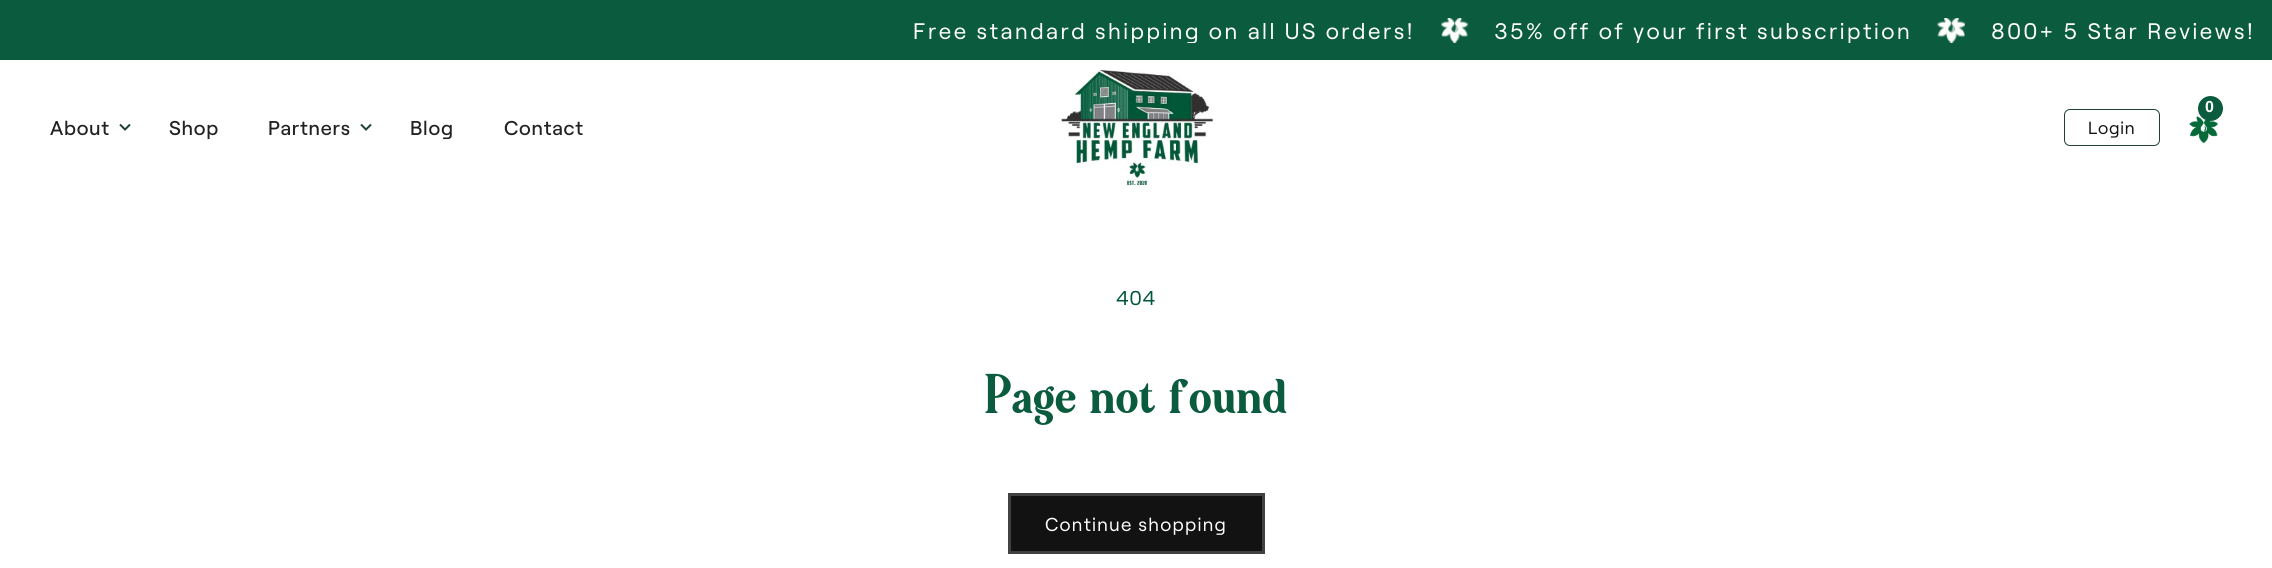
import math
import cairo

surface = cairo.ImageSurface(cairo.FORMAT_RGB24, 2272, 568)
ctx = cairo.Context(surface)
options = cairo.FontOptions()
options.set_hint_metrics(cairo.HINT_METRICS_OFF)
options.set_hint_style(cairo.HINT_STYLE_NONE)
ctx.set_font_options(options)
ctx.set_miter_limit(4)


def spaced_text(x, y, s, letter, word):
    ctx.move_to(x, y)
    for ch in s:
        ctx.show_text(ch)
        ctx.rel_move_to(letter + word * (ch == ' '), 0)


def round_rect(x, y, w, h, r):
    ctx.new_sub_path()
    for i, (u, v) in enumerate([(x + w - r, y + h - r), (x + r, y + h - r), (x + r, y + r), (x + w - r, y + r)]):
        ctx.arc(u, v, r, i * math.pi / 2, (i + 1) * math.pi / 2)
    ctx.close_path()


def picture(path, x, y, w, h):
    ctx.save()
    ctx.set_source_surface(cairo.ImageSurface.create_from_png(path), x, y)
    ctx.rectangle(x, y, w, h)
    ctx.fill()
    ctx.restore()


ctx.set_source_rgb(1, 1, 1)
ctx.paint()
ctx.set_source_rgb(0.043, 0.361, 0.243)
ctx.rectangle(0, 0, 2272, 60)
ctx.fill()
ctx.save()
ctx.rectangle(0, 18, 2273, 25)
ctx.clip()
ctx.select_font_face("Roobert")
ctx.set_font_size(22.5)
ctx.set_source_rgb(1, 1, 1)
spaced_text(913, 39, "Free standard shipping on all US orders!", 2.5, 0)
ctx.restore()
picture("img1.png", 1441, 18, 28, 25)
ctx.save()
ctx.rectangle(0, 18, 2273, 25)
ctx.clip()
ctx.select_font_face("Roobert")
ctx.set_font_size(22.5)
ctx.set_source_rgb(1, 1, 1)
spaced_text(1494, 39, "35% off of your first subscription", 2.5, 0)
ctx.restore()
picture("img2.png", 1937, 18, 28, 25)
ctx.select_font_face("Roobert")
ctx.set_font_size(22.5)
ctx.set_source_rgb(1, 1, 1)
spaced_text(1991, 39, "800+ 5 Star Reviews!", 2.5, 0)
ctx.select_font_face("Roobert Medium")
ctx.set_font_size(20)
ctx.set_source_rgb(0.133, 0.133, 0.133)
spaced_text(50, 135, "About", 0.75, 0)
ctx.new_path()
ctx.move_to(120, 124.5)
ctx.line_to(125, 129.5)
ctx.line_to(130, 124.5)
ctx.set_source_rgb(0.122, 0.247, 0.224)
ctx.stroke()
ctx.set_source_rgb(0.133, 0.133, 0.133)
spaced_text(169, 135, "Shop", 0.75, 0)
spaced_text(268, 135, "Partners", 0.75, 0)
ctx.new_path()
ctx.move_to(361, 124.5)
ctx.line_to(366, 129.5)
ctx.line_to(371, 124.5)
ctx.set_source_rgb(0.122, 0.247, 0.224)
ctx.stroke()
ctx.set_source_rgb(0.133, 0.133, 0.133)
spaced_text(410, 135, "Blog", 0.75, 0)
spaced_text(504, 135, "Contact", 0.75, 0)
picture("img3.png", 1061, 70, 152, 119)
picture("img4.png", 2189, 116, 29, 28)
ctx.set_source_rgb(0.043, 0.361, 0.243)
ctx.arc(2210.5, 108.5, 12.5, 0, 2 * math.pi)
ctx.fill()
ctx.select_font_face("Liberation Sans", cairo.FONT_SLANT_NORMAL, cairo.FONT_WEIGHT_BOLD)
ctx.set_font_size(16)
ctx.set_source_rgb(1, 1, 1)
spaced_text(2205, 112, "0", 0.75, 0)
round_rect(2064.5, 109.5, 95, 36, 5.5)
ctx.set_source_rgb(0.122, 0.247, 0.224)
ctx.set_line_width(1)
ctx.stroke()
ctx.select_font_face("Roobert")
ctx.set_font_size(17.5)
ctx.set_source_rgb(0.071, 0.071, 0.071)
spaced_text(2088, 134, "Login", 0.75, 0)
ctx.set_font_size(20)
ctx.set_source_rgb(0.008, 0.341, 0.224)
spaced_text(1116, 305, "404", 0.75, 0)
ctx.select_font_face("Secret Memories")
ctx.set_font_size(47.5)
ctx.set_source_rgb(0.043, 0.361, 0.243)
spaced_text(985, 413, "Page not found", 0.75, 0)
ctx.set_source_rgb(0.071, 0.071, 0.071)
ctx.rectangle(1011, 496, 251, 55)
ctx.fill()
ctx.rectangle(1009.5, 494.5, 254, 58)
ctx.set_source_rgb(0.255, 0.255, 0.255)
ctx.set_line_width(3)
ctx.stroke()
ctx.select_font_face("Roobert")
ctx.set_font_size(18.75)
ctx.set_source_rgb(1, 1, 1)
spaced_text(1045, 531, "Continue shopping", 1.25, 0)
surface.write_to_png("page.png")
